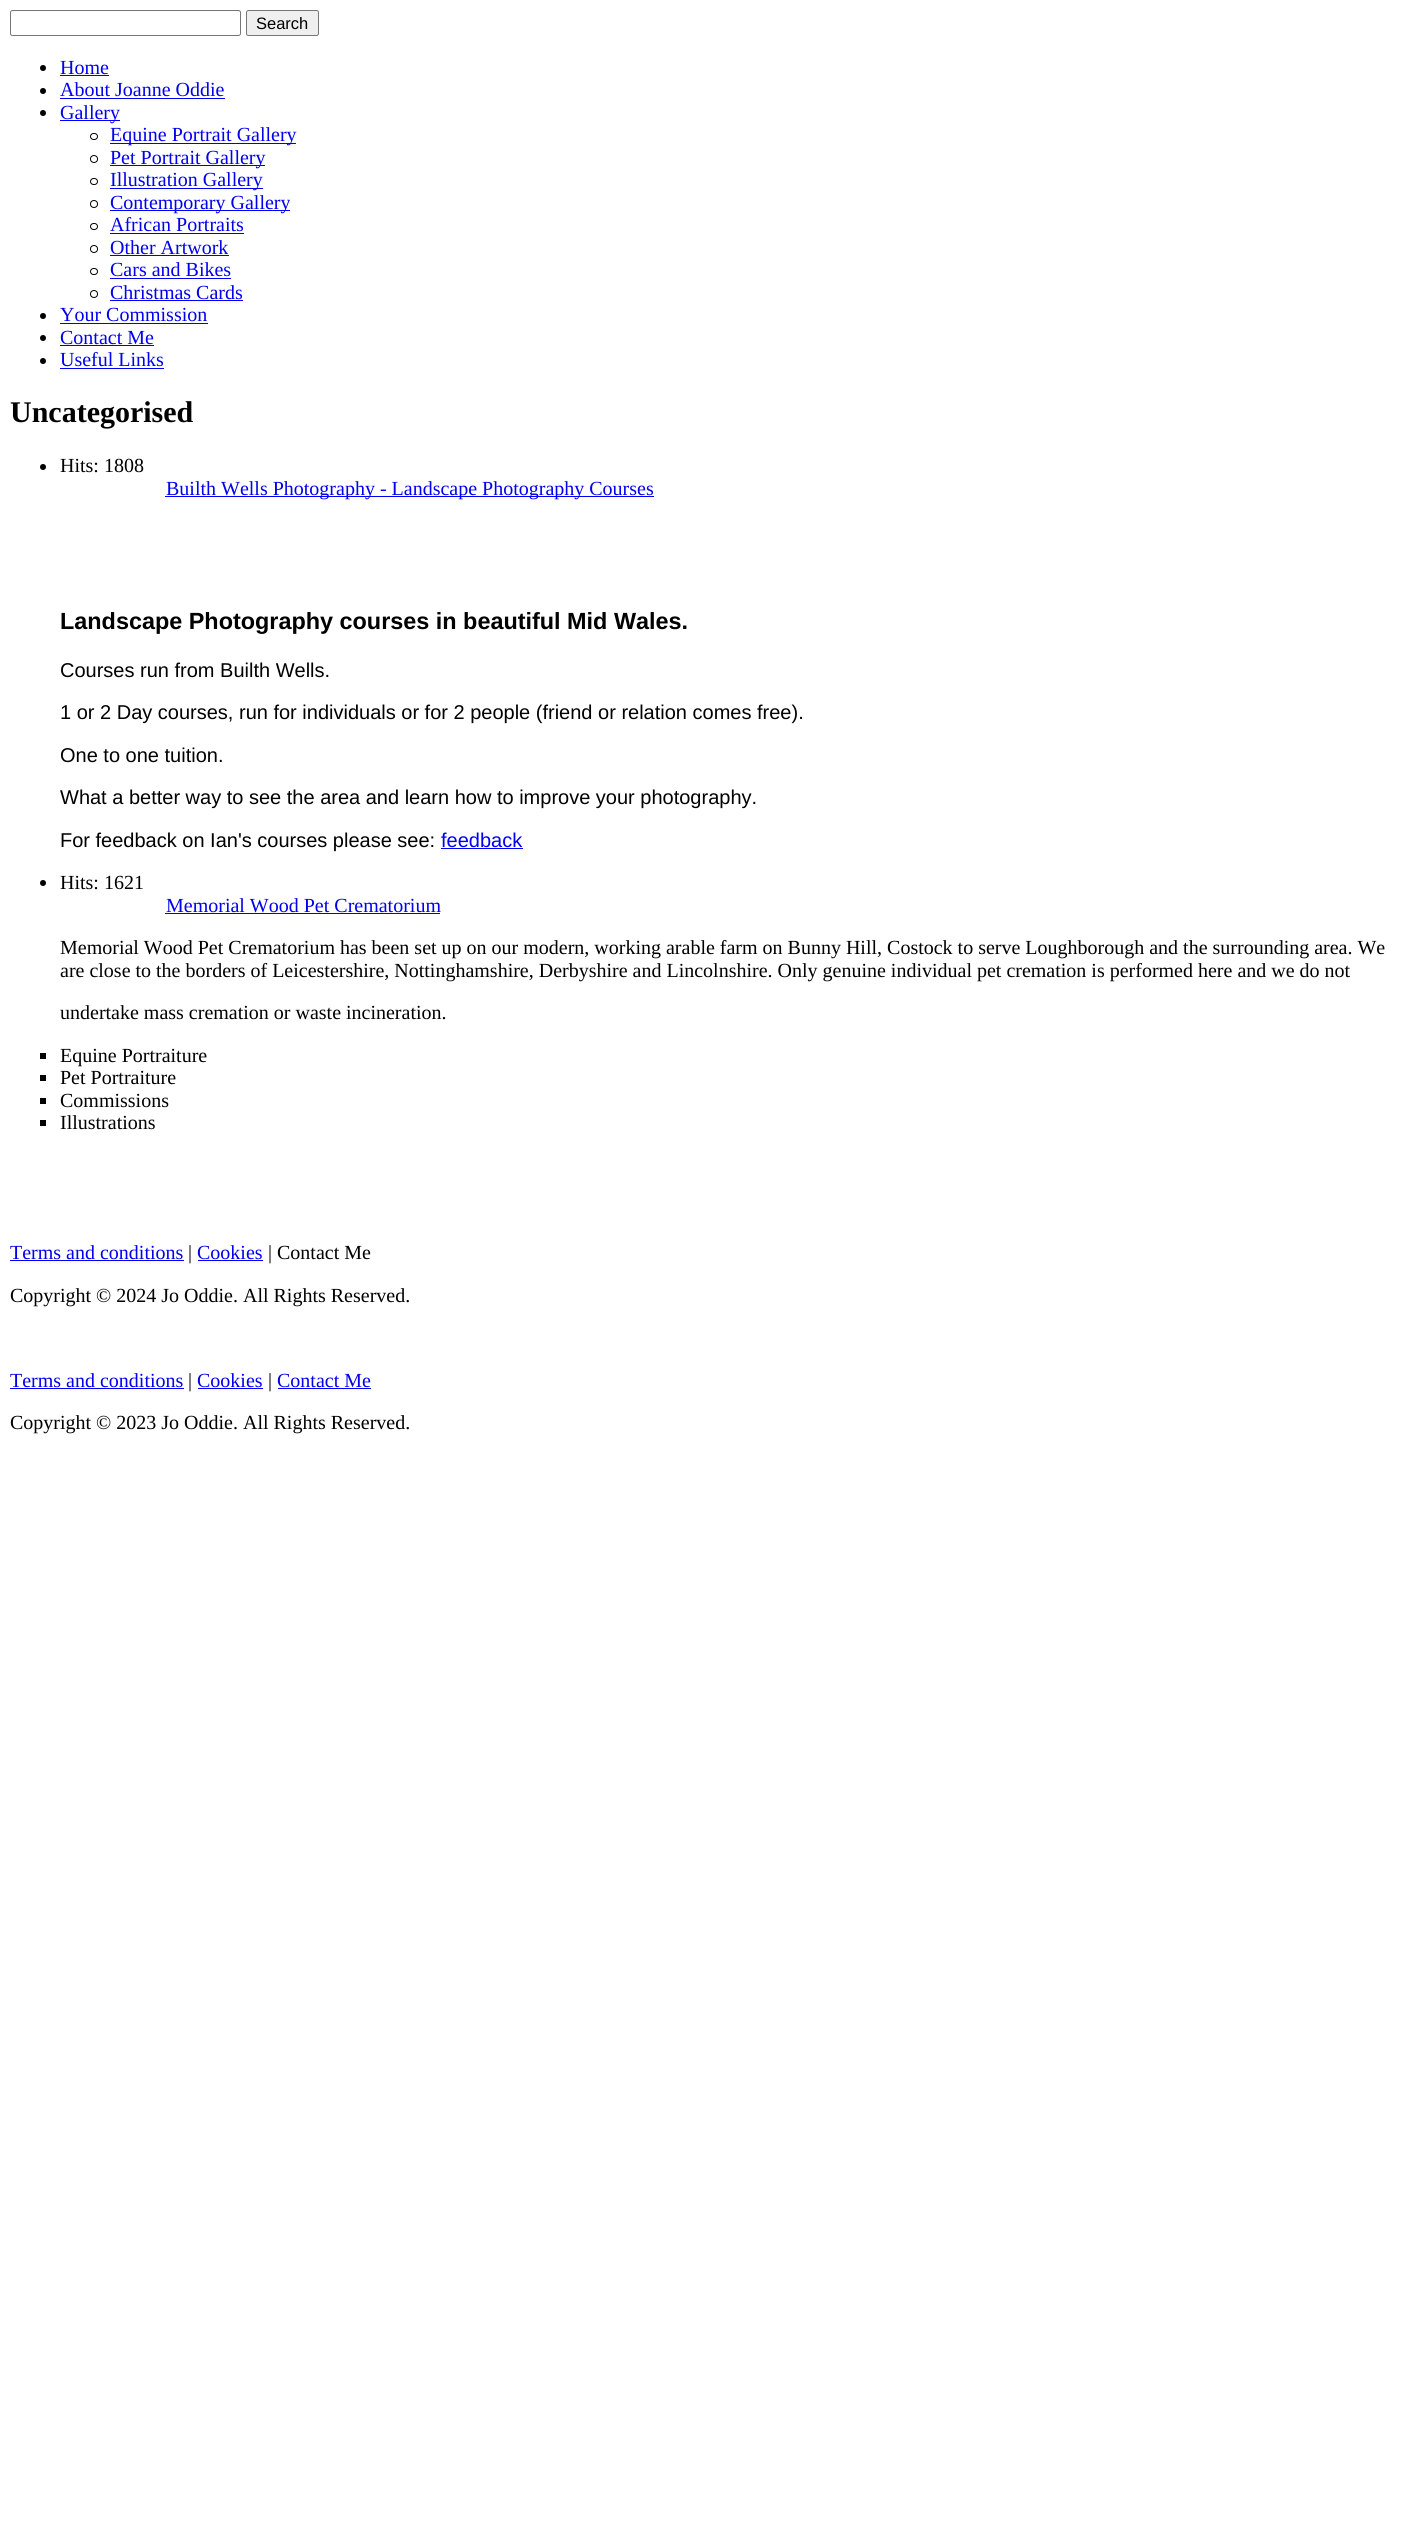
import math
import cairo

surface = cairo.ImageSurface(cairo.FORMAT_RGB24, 1402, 2545)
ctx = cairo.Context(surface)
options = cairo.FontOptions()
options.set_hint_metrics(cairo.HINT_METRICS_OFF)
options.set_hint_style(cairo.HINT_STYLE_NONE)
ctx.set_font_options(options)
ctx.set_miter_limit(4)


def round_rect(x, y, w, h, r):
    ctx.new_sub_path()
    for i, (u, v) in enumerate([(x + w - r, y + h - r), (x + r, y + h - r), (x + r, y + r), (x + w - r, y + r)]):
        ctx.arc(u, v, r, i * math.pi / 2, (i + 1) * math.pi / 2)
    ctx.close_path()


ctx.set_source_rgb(1, 1, 1)
ctx.paint()
round_rect(10.5, 10.5, 230, 25, 2)
ctx.set_source_rgb(0.463, 0.463, 0.463)
ctx.set_line_width(1)
ctx.stroke()
ctx.set_source_rgb(0.937, 0.937, 0.937)
round_rect(246.5, 10.5, 72, 25, 2)
ctx.fill_preserve()
ctx.set_source_rgb(0.463, 0.463, 0.463)
ctx.stroke()
ctx.select_font_face("Liberation Sans")
ctx.set_font_size(16.5)
ctx.set_source_rgb(0, 0, 0)
ctx.move_to(256, 29)
ctx.show_text("Search")
ctx.new_path()
ctx.arc(43, 68, 3, 0, 2 * math.pi)
ctx.fill()
ctx.select_font_face("Liberation Serif")
ctx.set_font_size(20)
ctx.set_source_rgb(0, 0, 0.933)
ctx.move_to(60, 74)
ctx.show_text("Home")
ctx.rectangle(60, 75, 49, 1)
ctx.fill()
ctx.set_source_rgb(0, 0, 0)
ctx.arc(43, 91, 3, 0, 2 * math.pi)
ctx.fill()
ctx.set_source_rgb(0, 0, 0.933)
ctx.move_to(60, 96)
ctx.show_text("About Joanne Oddie")
ctx.rectangle(60, 98, 165, 1)
ctx.fill()
ctx.set_source_rgb(0, 0, 0)
ctx.arc(43, 113, 3, 0, 2 * math.pi)
ctx.fill()
ctx.set_source_rgb(0, 0, 0.933)
ctx.rectangle(60, 120, 60, 1)
ctx.fill()
ctx.move_to(60, 119)
ctx.show_text("Gallery")
round_rect(90.5, 133.5, 7, 6, 3)
ctx.set_source_rgb(0, 0, 0)
ctx.stroke()
ctx.set_source_rgb(0, 0, 0.933)
ctx.rectangle(110, 143, 186, 1)
ctx.fill()
ctx.move_to(110, 141)
ctx.show_text("Equine Portrait Gallery")
ctx.new_path()
ctx.arc(94, 159, 3.5, 0, 2 * math.pi)
ctx.set_source_rgb(0, 0, 0)
ctx.stroke()
ctx.set_source_rgb(0, 0, 0.933)
ctx.rectangle(110, 165, 155, 1)
ctx.fill()
ctx.move_to(110, 164)
ctx.show_text("Pet Portrait Gallery")
round_rect(90.5, 178.5, 7, 6, 3)
ctx.set_source_rgb(0, 0, 0)
ctx.stroke()
ctx.set_source_rgb(0, 0, 0.933)
ctx.rectangle(110, 188, 153, 1)
ctx.fill()
ctx.move_to(110, 186)
ctx.show_text("Illustration Gallery")
ctx.new_path()
ctx.arc(94, 204, 3.5, 0, 2 * math.pi)
ctx.set_source_rgb(0, 0, 0)
ctx.stroke()
ctx.set_source_rgb(0, 0, 0.933)
ctx.rectangle(110, 210, 180, 1)
ctx.fill()
ctx.move_to(110, 209)
ctx.show_text("Contemporary Gallery")
round_rect(90.5, 223.5, 7, 6, 3)
ctx.set_source_rgb(0, 0, 0)
ctx.stroke()
ctx.set_source_rgb(0, 0, 0.933)
ctx.move_to(110, 231)
ctx.show_text("African Portraits")
ctx.rectangle(110, 233, 134, 1)
ctx.fill()
ctx.arc(94, 249, 3.5, 0, 2 * math.pi)
ctx.set_source_rgb(0, 0, 0)
ctx.stroke()
ctx.set_source_rgb(0, 0, 0.933)
ctx.move_to(110, 254)
ctx.show_text("Other Artwork")
ctx.rectangle(110, 255, 119, 1)
ctx.fill()
round_rect(90.5, 268.5, 7, 6, 3)
ctx.set_source_rgb(0, 0, 0)
ctx.stroke()
ctx.set_source_rgb(0, 0, 0.933)
ctx.move_to(110, 276)
ctx.show_text("Cars and Bikes")
ctx.rectangle(110, 278, 121, 1)
ctx.fill()
ctx.arc(94, 294, 3.5, 0, 2 * math.pi)
ctx.set_source_rgb(0, 0, 0)
ctx.stroke()
ctx.set_source_rgb(0, 0, 0.933)
ctx.move_to(110, 299)
ctx.show_text("Christmas Cards")
ctx.rectangle(110, 300, 133, 1)
ctx.fill()
ctx.set_source_rgb(0, 0, 0)
ctx.arc(43, 316, 3, 0, 2 * math.pi)
ctx.fill()
ctx.set_source_rgb(0, 0, 0.933)
ctx.move_to(60, 321)
ctx.show_text("Your Commission")
ctx.rectangle(60, 323, 148, 1)
ctx.fill()
ctx.set_source_rgb(0, 0, 0)
ctx.arc(43, 338, 3, 0, 2 * math.pi)
ctx.fill()
ctx.set_source_rgb(0, 0, 0.933)
ctx.move_to(60, 344)
ctx.show_text("Contact Me")
ctx.rectangle(60, 345, 94, 1)
ctx.fill()
ctx.set_source_rgb(0, 0, 0)
ctx.arc(43, 361, 3, 0, 2 * math.pi)
ctx.fill()
ctx.set_source_rgb(0, 0, 0.933)
ctx.move_to(60, 366)
ctx.show_text("Useful Links")
ctx.rectangle(60, 368, 104, 1)
ctx.fill()
ctx.select_font_face("Liberation Serif", cairo.FONT_SLANT_NORMAL, cairo.FONT_WEIGHT_BOLD)
ctx.set_font_size(30)
ctx.set_source_rgb(0, 0, 0)
ctx.move_to(10, 422)
ctx.show_text("Uncategorised")
ctx.new_path()
ctx.arc(43, 467, 3, 0, 2 * math.pi)
ctx.fill()
ctx.select_font_face("Liberation Serif")
ctx.set_font_size(20)
ctx.move_to(60, 472)
ctx.show_text("Hits: 1808")
ctx.set_source_rgb(0, 0, 0.933)
ctx.rectangle(165, 496, 489, 1)
ctx.fill()
ctx.move_to(166, 495)
ctx.show_text("Builth Wells Photography - Landscape Photography Courses")
ctx.select_font_face("Liberation Sans", cairo.FONT_SLANT_NORMAL, cairo.FONT_WEIGHT_BOLD)
ctx.set_font_size(23.4)
ctx.set_source_rgb(0, 0, 0)
ctx.move_to(60, 629)
ctx.show_text("Landscape Photography courses in beautiful Mid Wales.")
ctx.select_font_face("Liberation Sans")
ctx.set_font_size(20)
ctx.move_to(60, 677)
ctx.show_text("Courses run from Builth Wells.")
ctx.move_to(60, 719)
ctx.show_text("1 or 2 Day courses, run for individuals or for 2 people (friend or relation comes free).")
ctx.move_to(60, 762)
ctx.show_text("One to one tuition.")
ctx.move_to(60, 804)
ctx.show_text("What a better way to see the area and learn how to improve your photography.")
ctx.move_to(60, 847)
ctx.show_text("For feedback on Ian's courses please see:")
ctx.set_source_rgb(0, 0, 0.933)
ctx.move_to(441, 847)
ctx.show_text("feedback")
ctx.rectangle(441, 848, 82, 1)
ctx.fill()
ctx.set_source_rgb(0, 0, 0)
ctx.arc(43, 883, 3, 0, 2 * math.pi)
ctx.fill()
ctx.select_font_face("Liberation Serif")
ctx.move_to(60, 889)
ctx.show_text("Hits: 1621")
ctx.set_source_rgb(0, 0, 0.933)
ctx.move_to(166, 912)
ctx.show_text("Memorial Wood Pet Crematorium")
ctx.rectangle(165, 913, 275, 1)
ctx.fill()
ctx.set_source_rgb(0, 0, 0)
ctx.move_to(60, 954)
ctx.show_text("Memorial Wood Pet Crematorium has been set up on our modern, working arable farm on Bunny Hill, Costock to serve Loughborough and the surrounding area. We")
ctx.move_to(60, 977)
ctx.show_text("are close to the borders of Leicestershire, Nottinghamshire, Derbyshire and Lincolnshire. Only genuine individual pet cremation is performed here and we do not")
ctx.move_to(60, 1019)
ctx.show_text("undertake mass cremation or waste incineration.")
ctx.rectangle(40, 1053, 6, 6)
ctx.fill()
ctx.move_to(60, 1062)
ctx.show_text("Equine Portraiture")
ctx.rectangle(40, 1075, 6, 6)
ctx.fill()
ctx.move_to(60, 1084)
ctx.show_text("Pet Portraiture")
ctx.rectangle(40, 1098, 6, 6)
ctx.fill()
ctx.move_to(60, 1107)
ctx.show_text("Commissions")
ctx.rectangle(40, 1120, 6, 6)
ctx.fill()
ctx.move_to(60, 1129)
ctx.show_text("Illustrations")
ctx.set_source_rgb(0, 0, 0.933)
ctx.move_to(10, 1259)
ctx.show_text("Terms and conditions")
ctx.rectangle(10, 1260, 174, 1)
ctx.fill()
ctx.set_source_rgb(0, 0, 0)
ctx.move_to(188, 1259)
ctx.show_text("|")
ctx.set_source_rgb(0, 0, 0.933)
ctx.move_to(197, 1259)
ctx.show_text("Cookies")
ctx.rectangle(198, 1260, 65, 1)
ctx.fill()
ctx.set_source_rgb(0, 0, 0)
ctx.move_to(268, 1259)
ctx.show_text("| Contact Me")
ctx.move_to(10, 1302)
ctx.show_text("Copyright © 2024 Jo Oddie. All Rights Reserved.")
ctx.set_source_rgb(0, 0, 0.933)
ctx.move_to(10, 1387)
ctx.show_text("Terms and conditions")
ctx.rectangle(10, 1388, 174, 1)
ctx.fill()
ctx.set_source_rgb(0, 0, 0)
ctx.move_to(188, 1387)
ctx.show_text("|")
ctx.set_source_rgb(0, 0, 0.933)
ctx.move_to(197, 1387)
ctx.show_text("Cookies")
ctx.rectangle(198, 1388, 65, 1)
ctx.fill()
ctx.set_source_rgb(0, 0, 0)
ctx.move_to(268, 1387)
ctx.show_text("|")
ctx.set_source_rgb(0, 0, 0.933)
ctx.move_to(277, 1387)
ctx.show_text("Contact Me")
ctx.rectangle(278, 1388, 93, 1)
ctx.fill()
ctx.set_source_rgb(0, 0, 0)
ctx.move_to(10, 1429)
ctx.show_text("Copyright © 2023 Jo Oddie. All Rights Reserved.")
surface.write_to_png("page.png")
